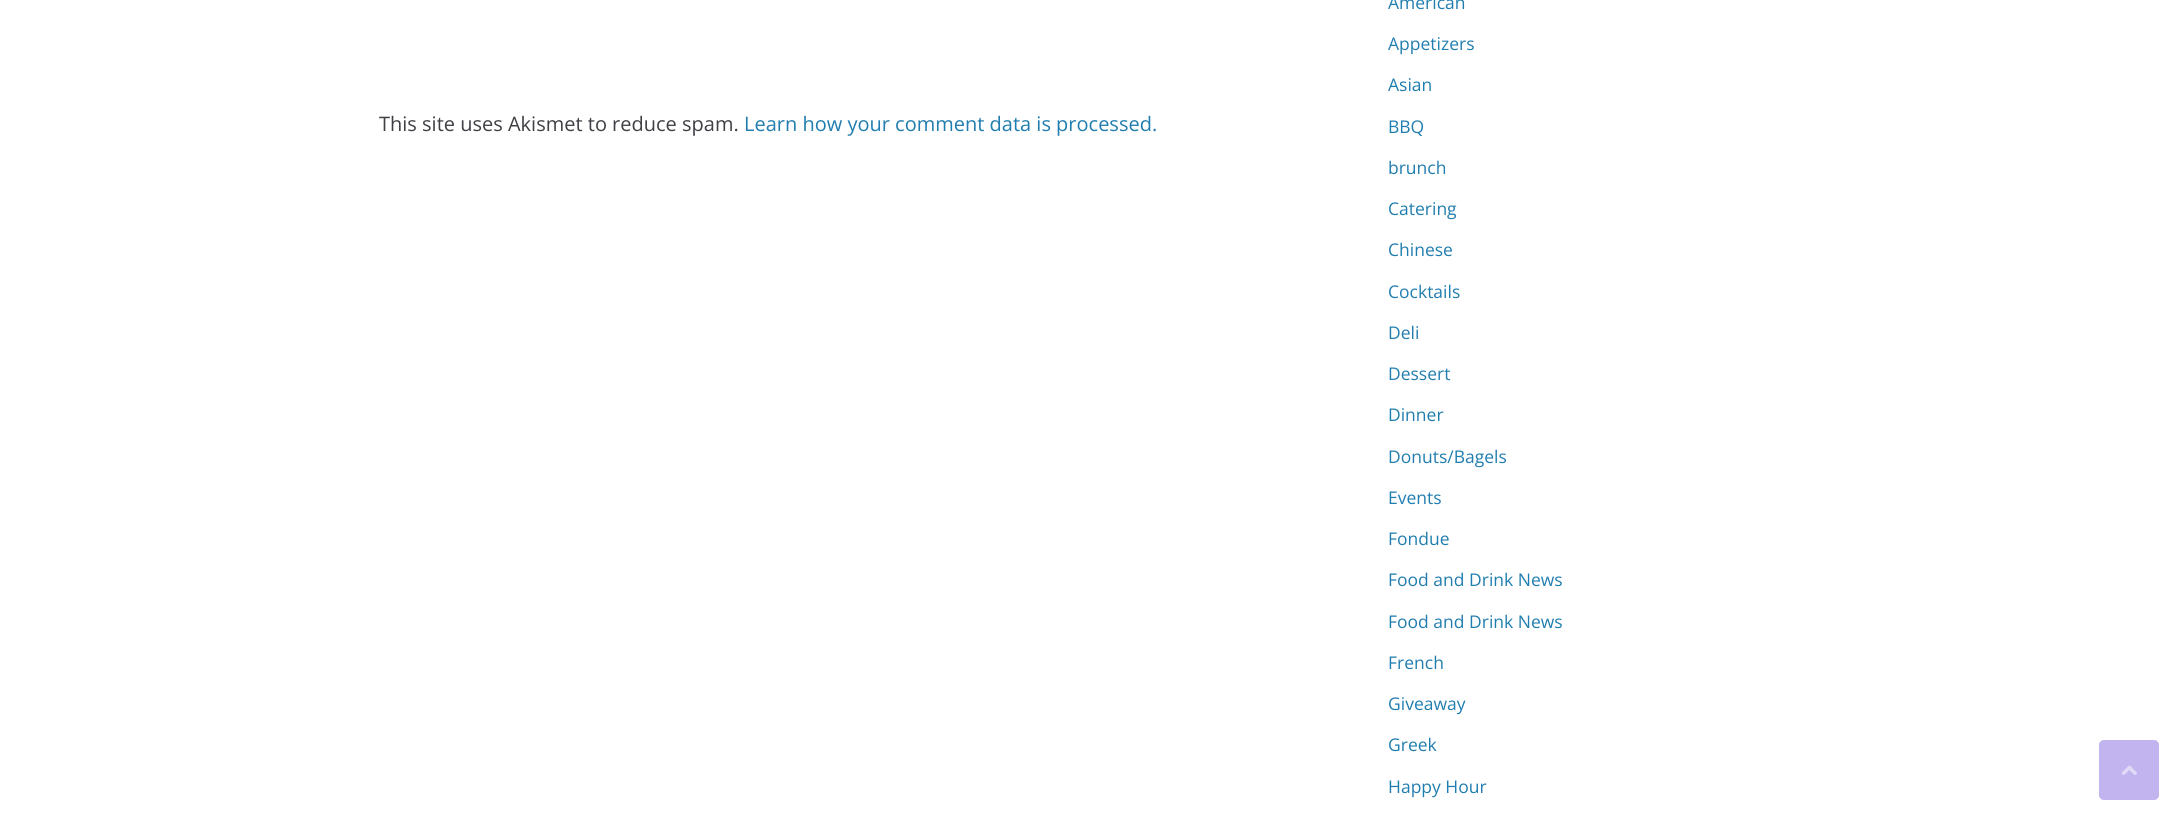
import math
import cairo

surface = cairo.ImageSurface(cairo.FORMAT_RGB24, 2183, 825)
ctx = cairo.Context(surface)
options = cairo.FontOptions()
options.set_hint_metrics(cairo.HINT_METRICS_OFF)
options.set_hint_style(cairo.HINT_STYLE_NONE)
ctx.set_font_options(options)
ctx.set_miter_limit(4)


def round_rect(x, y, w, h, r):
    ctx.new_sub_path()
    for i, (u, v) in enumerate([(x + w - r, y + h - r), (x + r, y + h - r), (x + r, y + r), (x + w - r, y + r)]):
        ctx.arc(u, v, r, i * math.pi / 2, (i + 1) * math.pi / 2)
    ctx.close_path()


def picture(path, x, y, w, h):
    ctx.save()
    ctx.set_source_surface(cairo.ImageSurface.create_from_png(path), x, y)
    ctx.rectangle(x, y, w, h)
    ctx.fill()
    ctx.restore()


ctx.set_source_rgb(1, 1, 1)
ctx.paint()
ctx.select_font_face("Open Sans")
ctx.set_font_size(20)
ctx.set_source_rgb(0.247, 0.247, 0.275)
ctx.move_to(379, 131)
ctx.show_text("This site uses Akismet to reduce spam.")
ctx.set_source_rgb(0.125, 0.49, 0.686)
ctx.move_to(744, 131)
ctx.show_text("Learn how your comment data is processed.")
ctx.set_font_size(17.5)
ctx.move_to(1388, 9)
ctx.show_text("American")
ctx.move_to(1388, 50)
ctx.show_text("Appetizers")
ctx.move_to(1388, 91)
ctx.show_text("Asian")
ctx.move_to(1388, 133)
ctx.show_text("BBQ")
ctx.move_to(1388, 174)
ctx.show_text("brunch")
ctx.move_to(1388, 215)
ctx.show_text("Catering")
ctx.move_to(1388, 256)
ctx.show_text("Chinese")
ctx.move_to(1388, 298)
ctx.show_text("Cocktails")
ctx.move_to(1388, 339)
ctx.show_text("Deli")
ctx.move_to(1388, 380)
ctx.show_text("Dessert")
ctx.move_to(1388, 421)
ctx.show_text("Dinner")
ctx.move_to(1388, 463)
ctx.show_text("Donuts/Bagels")
ctx.move_to(1388, 504)
ctx.show_text("Events")
ctx.move_to(1388, 545)
ctx.show_text("Fondue")
ctx.move_to(1388, 586)
ctx.show_text("Food and Drink News")
ctx.move_to(1388, 628)
ctx.show_text("Food and Drink News")
ctx.move_to(1388, 669)
ctx.show_text("French")
ctx.move_to(1388, 710)
ctx.show_text("Giveaway")
ctx.move_to(1388, 751)
ctx.show_text("Greek")
ctx.move_to(1388, 793)
ctx.show_text("Happy Hour")
ctx.set_source_rgb(0.757, 0.706, 0.937)
round_rect(2099, 740, 60, 60, 5)
ctx.fill()
picture("img1.png", 2121, 765, 16, 10)
surface.write_to_png("page.png")
